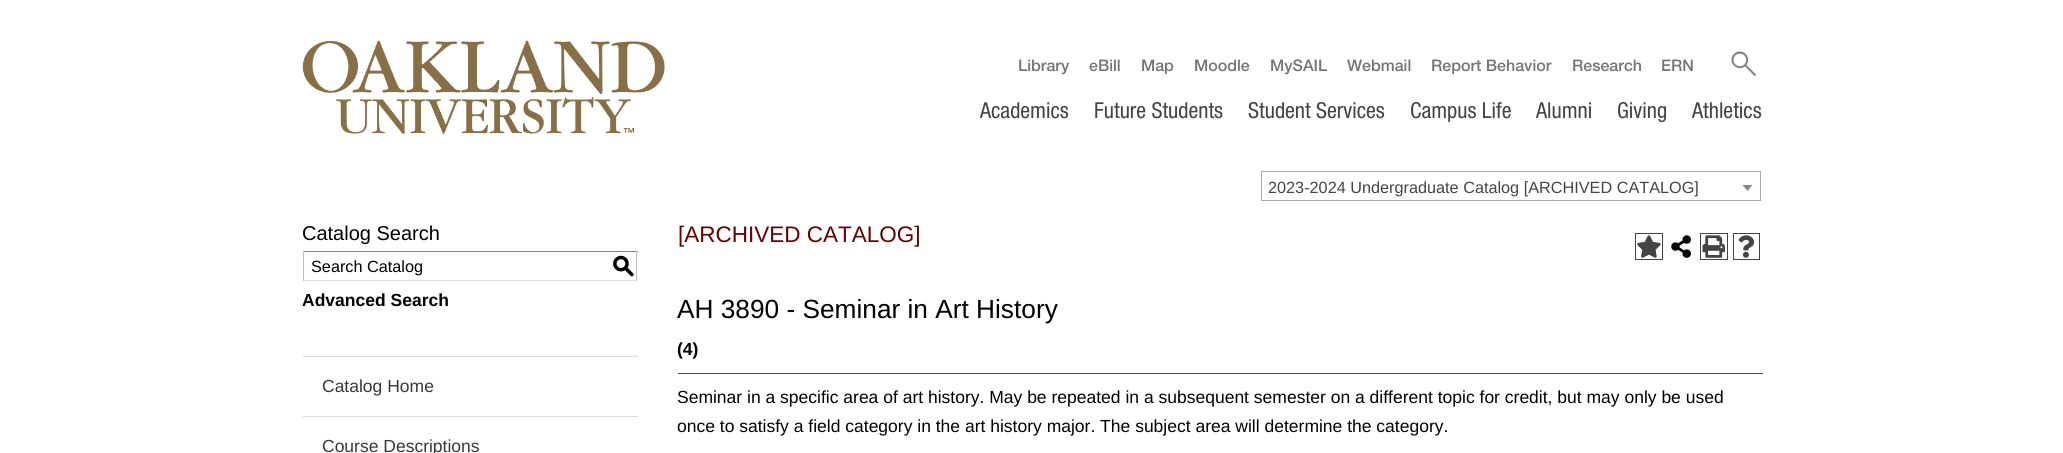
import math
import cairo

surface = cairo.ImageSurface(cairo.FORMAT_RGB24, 2063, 453)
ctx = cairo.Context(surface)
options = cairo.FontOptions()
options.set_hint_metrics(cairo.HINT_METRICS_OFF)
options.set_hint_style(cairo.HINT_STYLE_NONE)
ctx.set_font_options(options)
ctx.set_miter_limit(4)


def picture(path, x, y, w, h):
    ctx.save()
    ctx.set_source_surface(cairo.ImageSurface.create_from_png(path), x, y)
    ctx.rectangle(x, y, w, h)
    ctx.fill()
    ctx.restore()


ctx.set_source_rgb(1, 1, 1)
ctx.paint()
picture("img1.png", 302, 40, 363, 94)
ctx.select_font_face("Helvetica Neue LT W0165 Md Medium")
ctx.set_font_size(16)
ctx.set_source_rgb(0.459, 0.459, 0.459)
ctx.move_to(1018, 71)
ctx.show_text("Library")
ctx.move_to(1089, 71)
ctx.show_text("eBill")
ctx.move_to(1141, 71)
ctx.show_text("Map")
ctx.move_to(1194, 71)
ctx.show_text("Moodle")
ctx.move_to(1270, 71)
ctx.show_text("MySAIL")
ctx.move_to(1347, 71)
ctx.show_text("Webmail")
ctx.move_to(1431, 71)
ctx.show_text("Report Behavior")
ctx.move_to(1572, 71)
ctx.show_text("Research")
ctx.move_to(1661, 71)
ctx.show_text("ERN")
picture("img2.png", 1731, 51, 26, 26)
ctx.select_font_face("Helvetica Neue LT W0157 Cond")
ctx.set_font_size(22)
ctx.set_source_rgb(0.267, 0.267, 0.267)
ctx.move_to(980, 118)
ctx.show_text("Academics")
ctx.move_to(1094, 118)
ctx.show_text("Future Students")
ctx.move_to(1248, 118)
ctx.show_text("Student Services")
ctx.move_to(1410, 118)
ctx.show_text("Campus Life")
ctx.move_to(1536, 118)
ctx.show_text("Alumni")
ctx.move_to(1617, 118)
ctx.show_text("Giving")
ctx.move_to(1692, 118)
ctx.show_text("Athletics")
ctx.rectangle(1261.5, 171.5, 499, 29)
ctx.set_source_rgb(0.667, 0.667, 0.667)
ctx.set_line_width(1)
ctx.stroke()
ctx.select_font_face("Liberation Sans")
ctx.set_font_size(16.25)
ctx.set_source_rgb(0.267, 0.267, 0.267)
ctx.move_to(1268, 193)
ctx.show_text("2023-2024 Undergraduate Catalog [ARCHIVED CATALOG]")
ctx.set_source_rgb(0.533, 0.533, 0.533)
ctx.new_path()
ctx.move_to(1742.5, 185)
ctx.line_to(1752.5, 185)
ctx.line_to(1747.5, 191)
ctx.close_path()
ctx.fill()
ctx.set_font_size(20)
ctx.set_source_rgb(0, 0, 0)
ctx.move_to(302, 240)
ctx.show_text("Catalog Search")
ctx.set_source_rgb(0.518, 0.518, 0.518)
ctx.rectangle(303, 251, 335, 1)
ctx.fill()
ctx.set_source_rgb(0.757, 0.757, 0.757)
ctx.rectangle(636, 251, 1, 30)
ctx.fill()
ctx.set_source_rgb(0.882, 0.882, 0.882)
ctx.rectangle(303, 280, 335, 1)
ctx.fill()
ctx.set_source_rgb(0.757, 0.757, 0.757)
ctx.rectangle(303, 251, 1, 30)
ctx.fill()
ctx.set_font_size(16.25)
ctx.set_source_rgb(0, 0, 0)
ctx.move_to(311, 272)
ctx.show_text("Search Catalog")
ctx.select_font_face("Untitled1 Medium")
ctx.set_font_size(22.5)
ctx.move_to(612, 273)
ctx.show_text("S")
ctx.select_font_face("Liberation Sans", cairo.FONT_SLANT_NORMAL, cairo.FONT_WEIGHT_BOLD)
ctx.set_font_size(17.5)
ctx.move_to(302, 306)
ctx.show_text("Advanced Search")
ctx.set_source_rgb(0.863, 0.863, 0.863)
ctx.rectangle(303, 356, 335, 1)
ctx.fill()
ctx.rectangle(303, 416, 335, 1)
ctx.fill()
ctx.select_font_face("Liberation Sans")
ctx.set_source_rgb(0.22, 0.22, 0.22)
ctx.move_to(322, 392)
ctx.show_text("Catalog Home")
ctx.move_to(322, 452)
ctx.show_text("Course Descriptions")
ctx.set_font_size(22.5)
ctx.set_source_rgb(0.4, 0, 0)
ctx.move_to(678, 242)
ctx.show_text("[ARCHIVED CATALOG]")
ctx.rectangle(1635.5, 233.5, 27, 26)
ctx.set_source_rgb(0.267, 0.267, 0.267)
ctx.stroke()
picture("img3.png", 1637, 235, 24, 23)
picture("img4.png", 1671, 235, 20, 23)
ctx.rectangle(1700.5, 233.5, 27, 26)
ctx.stroke()
picture("img5.png", 1702, 235, 23, 23)
ctx.rectangle(1733.5, 233.5, 26, 26)
ctx.stroke()
picture("img6.png", 1738, 235, 17, 23)
ctx.set_font_size(26.25)
ctx.set_source_rgb(0, 0, 0)
ctx.move_to(677, 318)
ctx.show_text("AH 3890 - Seminar in Art History")
ctx.select_font_face("Liberation Sans", cairo.FONT_SLANT_NORMAL, cairo.FONT_WEIGHT_BOLD)
ctx.set_font_size(17.5)
ctx.move_to(677, 355)
ctx.show_text("(4)")
ctx.set_source_rgb(0.267, 0.267, 0.267)
ctx.rectangle(678, 373, 1085, 1)
ctx.fill()
ctx.select_font_face("Liberation Sans")
ctx.set_source_rgb(0, 0, 0)
ctx.move_to(677, 403)
ctx.show_text("Seminar in a specific area of art history. May be repeated in a subsequent semester on a different topic for credit, but may only be used")
ctx.move_to(677, 432)
ctx.show_text("once to satisfy a field category in the art history major. The subject area will determine the category.")
surface.write_to_png("page.png")
